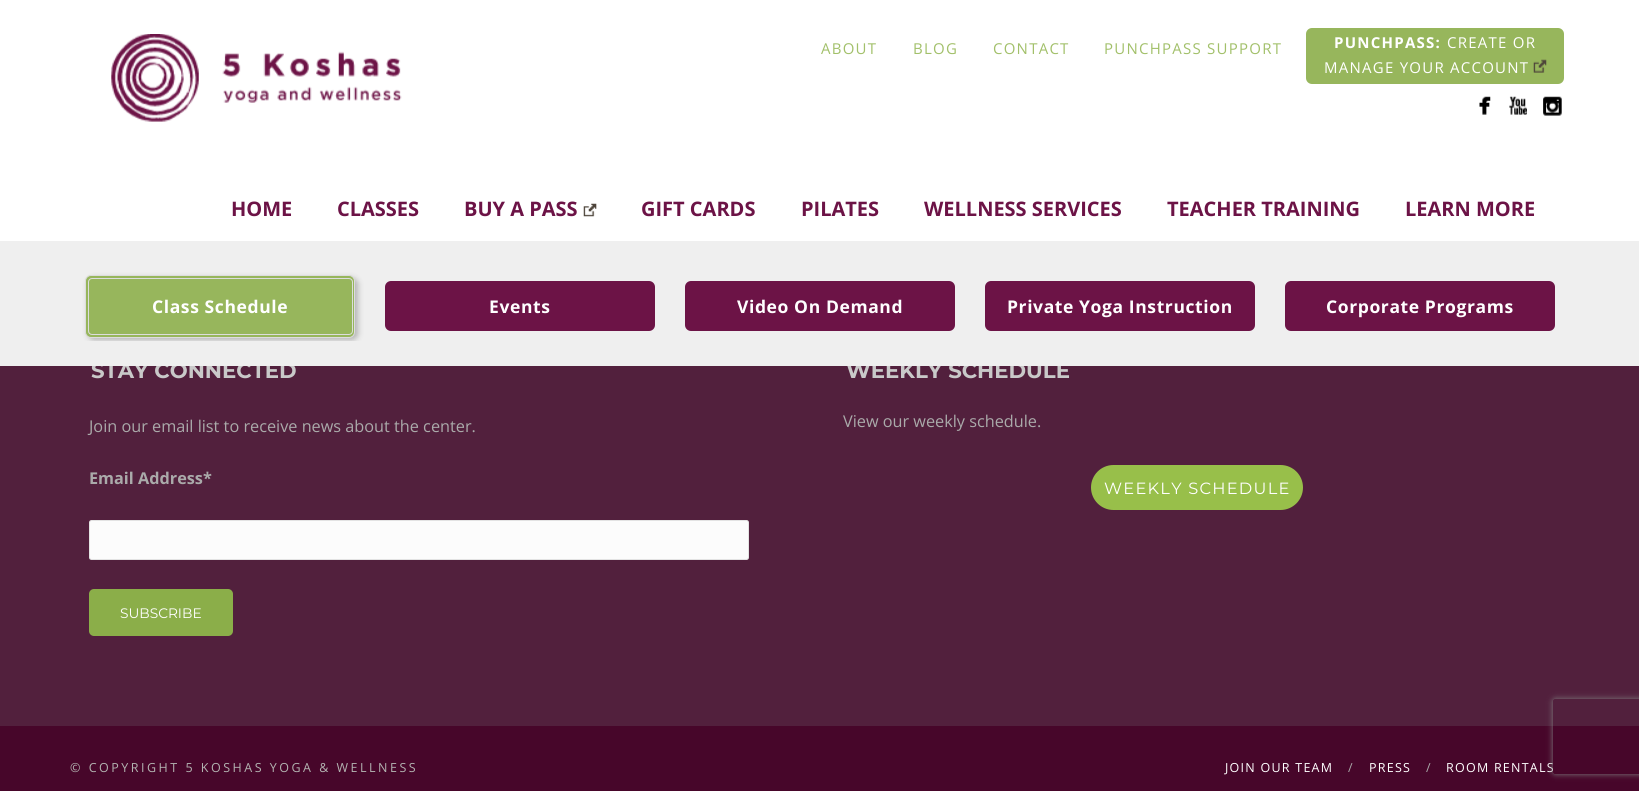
import math
import cairo

surface = cairo.ImageSurface(cairo.FORMAT_RGB24, 1639, 791)
ctx = cairo.Context(surface)
options = cairo.FontOptions()
options.set_hint_metrics(cairo.HINT_METRICS_OFF)
options.set_hint_style(cairo.HINT_STYLE_NONE)
ctx.set_font_options(options)
ctx.set_miter_limit(4)


def spaced_text(x, y, s, letter, word):
    ctx.move_to(x, y)
    for ch in s:
        ctx.show_text(ch)
        ctx.rel_move_to(letter + word * (ch == ' '), 0)


def round_rect(x, y, w, h, r):
    ctx.new_sub_path()
    for i, (u, v) in enumerate([(x + w - r, y + h - r), (x + r, y + h - r), (x + r, y + r), (x + w - r, y + r)]):
        ctx.arc(u, v, r, i * math.pi / 2, (i + 1) * math.pi / 2)
    ctx.close_path()


def shadow(x, y, w, h, r, blur, alpha):
    ctx.push_group_with_content(cairo.CONTENT_ALPHA)
    ctx.set_operator(cairo.OPERATOR_SOURCE)
    for i in range(15, -16, -2):
        e = blur * i / 6
        if min(w, h) + 2 * e > 0:
            ctx.set_source_rgba(0, 0, 0, alpha * math.erfc((i - 1) / 8.5) / 2)
            round_rect(x - e, y - e, w + 2 * e, h + 2 * e, max(0, min(r + e + blur * .6, min(w, h) / 2 + e)))
            ctx.fill()
    ctx.mask(ctx.pop_group())


def picture(path, x, y, w, h):
    ctx.save()
    ctx.set_source_surface(cairo.ImageSurface.create_from_png(path), x, y)
    ctx.rectangle(x, y, w, h)
    ctx.fill()
    ctx.restore()


ctx.set_source_rgb(0.322, 0.125, 0.239)
ctx.paint()
ctx.set_source_rgb(1, 1, 1)
ctx.rectangle(0, 0, 1639, 241)
ctx.fill()
picture("img1.png", 111, 34, 291, 88)
ctx.select_font_face("Open Sans")
ctx.set_font_size(15)
ctx.set_source_rgb(0.635, 0.753, 0.416)
spaced_text(821, 54, "ABOUT", 1.25, 0)
spaced_text(913, 54, "BLOG", 1.25, 0)
spaced_text(993, 54, "CONTACT", 1.25, 0)
spaced_text(1104, 54, "PUNCHPASS SUPPORT", 1.25, 0)
ctx.set_source_rgb(0.592, 0.714, 0.361)
round_rect(1306, 28, 258, 56, 6)
ctx.fill()
ctx.select_font_face("Open Sans", cairo.FONT_SLANT_NORMAL, cairo.FONT_WEIGHT_BOLD)
ctx.set_source_rgb(1, 1, 1)
spaced_text(1334, 48, "PUNCHPASS:", 1.25, 0)
ctx.select_font_face("Open Sans")
spaced_text(1447, 48, "CREATE OR", 1.25, 0)
spaced_text(1324, 73, "MANAGE YOUR ACCOUNT", 1.25, 0)
picture("img2.png", 1533, 59, 14, 14)
picture("img3.png", 1479, 96, 12, 19)
picture("img4.png", 1509, 96, 18, 19)
picture("img5.png", 1543, 96, 19, 20)
ctx.select_font_face("Open Sans", cairo.FONT_SLANT_NORMAL, cairo.FONT_WEIGHT_BOLD)
ctx.set_font_size(20)
ctx.set_source_rgb(0.424, 0.078, 0.275)
ctx.move_to(231, 216)
ctx.show_text("HOME")
ctx.move_to(337, 216)
ctx.show_text("CLASSES")
ctx.move_to(464, 216)
ctx.show_text("BUY A PASS")
picture("img6.png", 583, 203, 14, 14)
ctx.move_to(641, 216)
ctx.show_text("GIFT CARDS")
ctx.move_to(801, 216)
ctx.show_text("PILATES")
ctx.move_to(924, 216)
ctx.show_text("WELLNESS SERVICES")
ctx.move_to(1167, 216)
ctx.show_text("TEACHER TRAINING")
ctx.move_to(1405, 216)
ctx.show_text("LEARN MORE")
ctx.set_source_rgb(0.937, 0.937, 0.937)
ctx.rectangle(0, 241, 1639, 100)
ctx.fill()
ctx.set_source_rgb(0, 0, 0)
shadow(88, 278, 270, 62, 6, 3, 0.25)
ctx.set_source_rgb(0.592, 0.714, 0.361)
round_rect(85.5, 275.5, 269, 62, 5.5)
ctx.fill_preserve()
ctx.set_source_rgb(0.867, 0.867, 0.867)
ctx.set_line_width(1)
ctx.stroke()
round_rect(88.5, 278.5, 264, 56, 3.5)
ctx.stroke()
ctx.set_font_size(17.5)
ctx.set_source_rgb(1, 1, 1)
spaced_text(152, 313, "Class Schedule", 0.6, 0)
ctx.set_source_rgb(0.424, 0.078, 0.275)
round_rect(385, 281, 270, 50, 6)
ctx.fill()
ctx.set_source_rgb(1, 1, 1)
spaced_text(489, 313, "Events", 0.6, 0)
ctx.set_source_rgb(0.424, 0.078, 0.275)
round_rect(685, 281, 270, 50, 6)
ctx.fill()
ctx.set_source_rgb(1, 1, 1)
spaced_text(737, 313, "Video On Demand", 0.6, 0)
ctx.set_source_rgb(0.424, 0.078, 0.275)
round_rect(985, 281, 270, 50, 6)
ctx.fill()
ctx.set_source_rgb(1, 1, 1)
spaced_text(1007, 313, "Private Yoga Instruction", 0.6, 0)
ctx.set_source_rgb(0.424, 0.078, 0.275)
round_rect(1285, 281, 270, 50, 6)
ctx.fill()
ctx.set_source_rgb(1, 1, 1)
spaced_text(1326, 313, "Corporate Programs", 0.6, 0)
ctx.select_font_face("Montserrat", cairo.FONT_SLANT_NORMAL, cairo.FONT_WEIGHT_BOLD)
ctx.set_font_size(21.25)
ctx.set_source_rgb(0.788, 0.788, 0.788)
ctx.move_to(91, 378)
ctx.show_text("STAY CONNECTED")
ctx.move_to(846, 378)
ctx.show_text("WEEKLY SCHEDULE")
ctx.set_source_rgb(0.937, 0.937, 0.937)
ctx.rectangle(0, 341, 1639, 25)
ctx.fill()
ctx.select_font_face("Open Sans")
ctx.set_font_size(16.25)
ctx.set_source_rgb(0.667, 0.667, 0.667)
ctx.move_to(89, 432)
ctx.show_text("Join our email list to receive news about the center.")
ctx.select_font_face("Open Sans", cairo.FONT_SLANT_NORMAL, cairo.FONT_WEIGHT_BOLD)
ctx.move_to(89, 484)
ctx.show_text("Email Address*")
ctx.set_source_rgb(0.988, 0.988, 0.988)
round_rect(89, 520, 660, 40, 2.5)
ctx.fill()
round_rect(89.5, 520.5, 659, 39, 2)
ctx.set_source_rgba(0, 0, 0, 0.1)
ctx.stroke()
ctx.set_source_rgb(0.545, 0.682, 0.286)
round_rect(89, 589, 144, 47, 5)
ctx.fill()
ctx.select_font_face("Montserrat")
ctx.set_font_size(13.75)
ctx.set_source_rgb(1, 1, 1)
ctx.move_to(120, 618)
ctx.show_text("SUBSCRIBE")
ctx.select_font_face("Open Sans")
ctx.set_font_size(16.25)
ctx.set_source_rgb(0.667, 0.667, 0.667)
ctx.move_to(843, 427)
ctx.show_text("View our weekly schedule.")
ctx.set_source_rgb(0.596, 0.749, 0.29)
round_rect(1091, 465, 212, 45, 22.5)
ctx.fill()
ctx.select_font_face("Montserrat")
ctx.set_source_rgb(1, 1, 1)
spaced_text(1104, 494, "WEEKLY SCHEDULE", 1.25, 0)
ctx.set_source_rgb(0.278, 0.027, 0.165)
ctx.rectangle(0, 726, 1639, 65)
ctx.fill()
ctx.select_font_face("Open Sans")
ctx.set_font_size(12.5)
ctx.set_source_rgb(0.702, 0.702, 0.694)
spaced_text(70, 772, "© COPYRIGHT 5 KOSHAS YOGA & WELLNESS", 2.5, 0)
ctx.set_source_rgb(1, 1, 1)
spaced_text(1225, 772, "JOIN OUR TEAM", 1.25, 0)
ctx.set_source_rgb(0.667, 0.667, 0.667)
spaced_text(1348, 772, "/", 1.25, 0)
ctx.set_source_rgb(1, 1, 1)
spaced_text(1369, 772, "PRESS", 1.25, 0)
ctx.set_source_rgb(0.667, 0.667, 0.667)
spaced_text(1426, 772, "/", 1.25, 0)
ctx.set_source_rgb(1, 1, 1)
spaced_text(1446, 772, "ROOM RENTALS", 1.25, 0)
ctx.save()
ctx.set_fill_rule(cairo.FILL_RULE_EVEN_ODD)
ctx.new_path()
ctx.move_to(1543, 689)
ctx.line_to(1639, 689)
ctx.line_to(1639, 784)
ctx.line_to(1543, 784)
ctx.close_path()
ctx.move_to(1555.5, 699)
ctx.line_to(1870.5, 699)
ctx.curve_to(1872, 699, 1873, 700, 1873, 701.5)
ctx.line_to(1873, 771.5)
ctx.curve_to(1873, 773, 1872, 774, 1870.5, 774)
ctx.line_to(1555.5, 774)
ctx.curve_to(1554, 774, 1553, 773, 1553, 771.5)
ctx.line_to(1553, 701.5)
ctx.curve_to(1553, 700, 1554, 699, 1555.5, 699)
ctx.close_path()
ctx.clip()
ctx.set_source_rgb(0.502, 0.502, 0.502)
shadow(1553, 699, 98, 75, 2.5, 3, 1)
ctx.restore()
surface.write_to_png("page.png")
